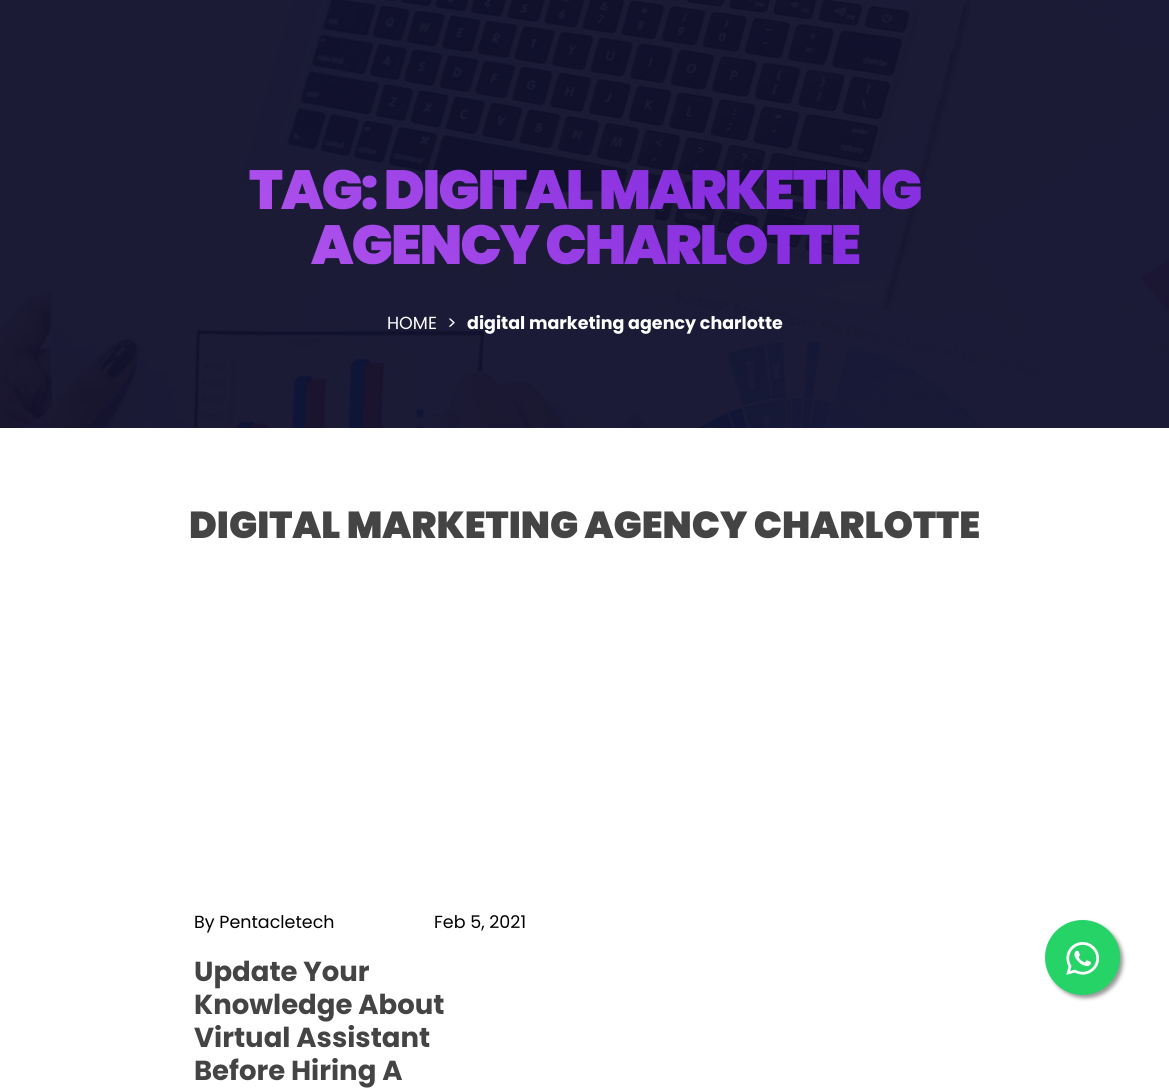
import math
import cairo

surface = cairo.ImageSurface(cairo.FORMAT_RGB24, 1169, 1088)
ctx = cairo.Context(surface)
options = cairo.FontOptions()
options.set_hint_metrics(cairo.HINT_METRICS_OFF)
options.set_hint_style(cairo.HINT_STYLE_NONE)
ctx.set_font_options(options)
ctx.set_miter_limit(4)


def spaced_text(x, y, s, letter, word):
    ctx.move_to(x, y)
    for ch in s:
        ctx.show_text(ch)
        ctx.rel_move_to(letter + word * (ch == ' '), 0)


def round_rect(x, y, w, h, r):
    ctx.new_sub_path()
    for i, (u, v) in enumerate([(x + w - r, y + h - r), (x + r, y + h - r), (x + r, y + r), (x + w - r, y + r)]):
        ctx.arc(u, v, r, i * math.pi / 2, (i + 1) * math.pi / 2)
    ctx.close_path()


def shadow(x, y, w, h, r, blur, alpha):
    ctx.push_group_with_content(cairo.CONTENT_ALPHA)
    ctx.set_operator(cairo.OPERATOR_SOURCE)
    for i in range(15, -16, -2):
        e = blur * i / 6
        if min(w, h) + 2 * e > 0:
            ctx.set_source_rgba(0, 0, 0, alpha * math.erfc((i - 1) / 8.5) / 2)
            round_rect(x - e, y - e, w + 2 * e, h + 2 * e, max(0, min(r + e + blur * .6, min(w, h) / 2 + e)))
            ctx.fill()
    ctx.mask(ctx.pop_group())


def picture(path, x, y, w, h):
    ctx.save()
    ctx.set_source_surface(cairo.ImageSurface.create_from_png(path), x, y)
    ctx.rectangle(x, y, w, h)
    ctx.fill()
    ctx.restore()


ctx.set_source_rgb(1, 1, 1)
ctx.paint()
picture("img1.png", 0, 0, 1169, 428)
ctx.select_font_face("Poppins Black")
ctx.set_font_size(55)
gradient = cairo.LinearGradient(342, 461, 828, -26)
gradient.add_color_stop_rgba(0.15, 0.686, 0.322, 0.929, 1)
gradient.add_color_stop_rgba(0.65, 0.533, 0.188, 0.875, 1)
ctx.set_source(gradient)
spaced_text(249, 209, "TAG: DIGITAL MARKETING", -2, 0)
spaced_text(311, 264, "AGENCY CHARLOTTE", -2, 0)
ctx.select_font_face("Poppins")
ctx.set_font_size(17.5)
ctx.set_source_rgb(1, 1, 1)
ctx.move_to(387, 329)
ctx.show_text("HOME")
ctx.move_to(447, 329)
ctx.show_text(">")
ctx.select_font_face("Poppins", cairo.FONT_SLANT_NORMAL, cairo.FONT_WEIGHT_BOLD)
ctx.move_to(467, 329)
ctx.show_text("digital marketing agency charlotte")
ctx.select_font_face("Poppins Black")
ctx.set_font_size(37.5)
ctx.set_source_rgb(0.267, 0.267, 0.267)
ctx.move_to(189, 538)
ctx.show_text("DIGITAL MARKETING AGENCY CHARLOTTE")
ctx.select_font_face("Poppins")
ctx.set_font_size(17.5)
ctx.set_source_rgb(0, 0, 0)
ctx.move_to(194, 928)
ctx.show_text("By Pentacletech")
ctx.move_to(434, 928)
ctx.show_text("Feb 5, 2021")
ctx.select_font_face("Poppins", cairo.FONT_SLANT_NORMAL, cairo.FONT_WEIGHT_BOLD)
ctx.set_font_size(27.5)
ctx.set_source_rgb(0.267, 0.267, 0.267)
ctx.move_to(194, 981)
ctx.show_text("Update Your")
ctx.move_to(194, 1014)
ctx.show_text("Knowledge About")
ctx.move_to(194, 1047)
ctx.show_text("Virtual Assistant")
ctx.move_to(194, 1080)
ctx.show_text("Before Hiring A")
ctx.set_source_rgb(0.6, 0.6, 0.6)
shadow(1048, 923, 75, 75, 37.5, 2, 1)
ctx.set_source_rgb(0.145, 0.827, 0.4)
ctx.arc(1082.5, 957.5, 37.5, 0, 2 * math.pi)
ctx.fill()
picture("img2.png", 1066, 942, 34, 33)
surface.write_to_png("page.png")
